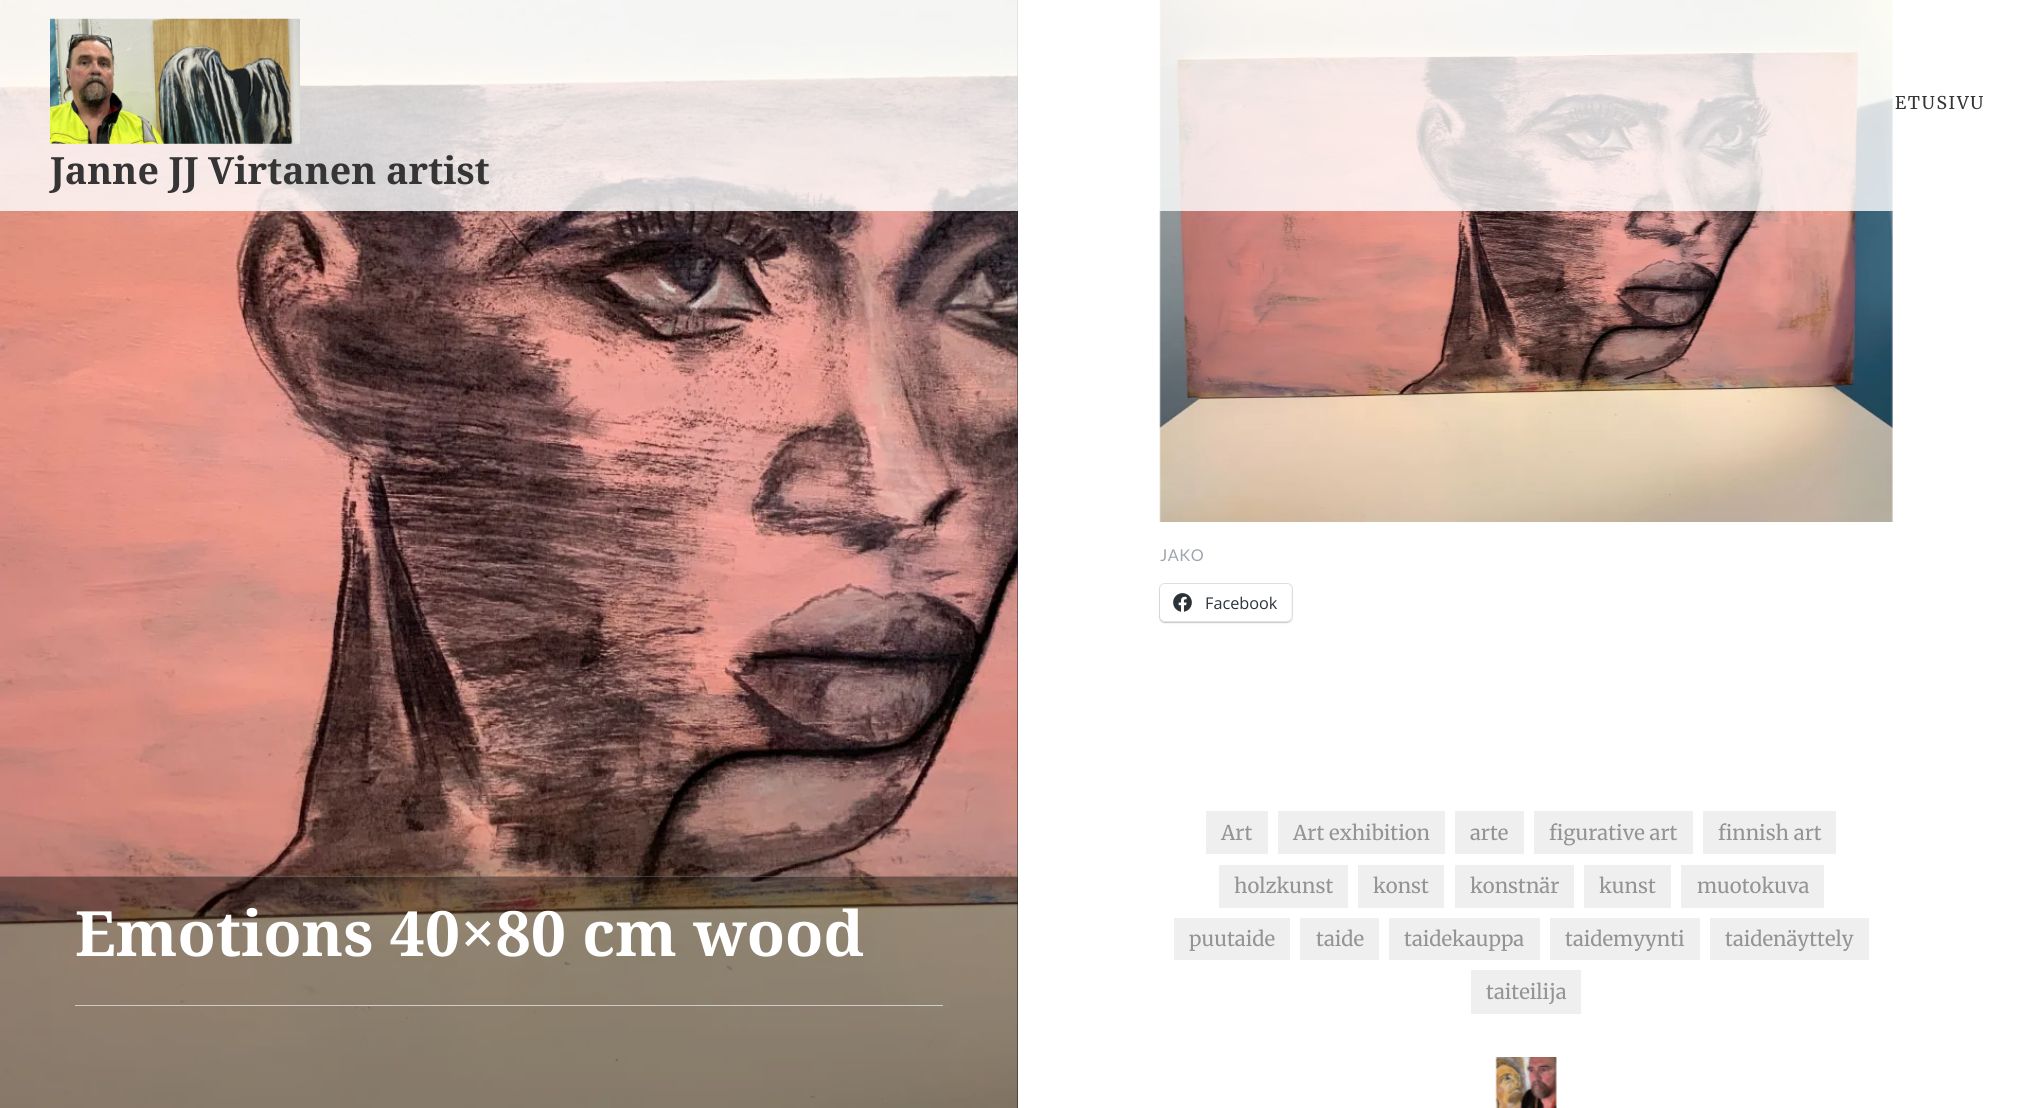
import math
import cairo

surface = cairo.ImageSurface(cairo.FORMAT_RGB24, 2034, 1108)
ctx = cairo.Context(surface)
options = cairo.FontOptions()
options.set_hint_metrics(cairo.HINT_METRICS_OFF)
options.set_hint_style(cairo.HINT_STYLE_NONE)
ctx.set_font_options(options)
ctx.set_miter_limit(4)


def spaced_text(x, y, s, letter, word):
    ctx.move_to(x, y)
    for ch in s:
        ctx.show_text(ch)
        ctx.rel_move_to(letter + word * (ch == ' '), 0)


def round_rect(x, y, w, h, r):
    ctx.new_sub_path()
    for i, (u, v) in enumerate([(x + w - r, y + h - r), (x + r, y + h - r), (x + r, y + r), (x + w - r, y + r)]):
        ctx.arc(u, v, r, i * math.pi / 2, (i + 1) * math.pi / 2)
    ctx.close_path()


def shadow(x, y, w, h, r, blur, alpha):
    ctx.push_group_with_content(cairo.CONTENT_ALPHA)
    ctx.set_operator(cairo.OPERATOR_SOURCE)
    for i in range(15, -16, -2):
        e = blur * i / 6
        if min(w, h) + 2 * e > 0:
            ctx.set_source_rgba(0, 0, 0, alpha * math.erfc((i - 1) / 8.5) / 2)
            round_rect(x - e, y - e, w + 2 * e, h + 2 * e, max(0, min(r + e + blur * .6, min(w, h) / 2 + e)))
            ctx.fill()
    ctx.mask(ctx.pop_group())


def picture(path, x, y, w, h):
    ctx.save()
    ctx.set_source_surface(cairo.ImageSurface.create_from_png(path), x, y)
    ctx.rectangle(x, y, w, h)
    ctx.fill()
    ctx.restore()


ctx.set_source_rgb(0.141, 0.149, 0.161)
ctx.paint()
ctx.set_source_rgb(1, 1, 1)
ctx.rectangle(1018, 0, 1016, 1108)
ctx.fill()
picture("img2.png", 0, 0, 1018, 1108)
picture("img3.png", 1159, 0, 734, 522)
ctx.set_source_rgba(1, 1, 1, 0.8)
ctx.rectangle(0, 0, 1893, 211)
ctx.fill()
ctx.select_font_face("Merriweather")
ctx.set_font_size(17.5)
ctx.set_source_rgb(0.208, 0.208, 0.208)
spaced_text(1895, 109, "ETUSIVU", 1.75, 0)
picture("img1.png", 50, 18, 250, 126)
ctx.select_font_face("Noto Serif", cairo.FONT_SLANT_NORMAL, cairo.FONT_WEIGHT_BOLD)
ctx.set_font_size(37.5)
ctx.move_to(50, 184)
ctx.show_text("Janne JJ Virtanen artist")
ctx.select_font_face("Lato")
ctx.set_font_size(16.25)
ctx.set_source_rgb(0.616, 0.647, 0.678)
spaced_text(1160, 561, "JAKO", 0.5, 0)
round_rect(1159.5, 583.5, 133, 39, 5.5)
ctx.set_source_rgb(0.878, 0.878, 0.878)
ctx.set_line_width(1)
ctx.stroke()
ctx.set_source_rgb(0, 0, 0)
shadow(1160, 585, 131, 38, 5, 1, 0.12)
ctx.set_source_rgb(1, 1, 1)
round_rect(1160, 584, 131, 37, 5)
ctx.fill()
picture("img4.png", 1173, 593, 19, 19)
ctx.select_font_face("Open Sans")
ctx.set_source_rgb(0.173, 0.2, 0.22)
ctx.move_to(1205, 609)
ctx.show_text("Facebook")
ctx.set_source_rgba(0, 0, 0, 0.4)
ctx.rectangle(0, 876, 1018, 232)
ctx.fill()
ctx.set_source_rgba(1, 1, 1, 0.2)
ctx.rectangle(0, 876, 1018, 1)
ctx.fill()
ctx.select_font_face("Noto Serif", cairo.FONT_SLANT_NORMAL, cairo.FONT_WEIGHT_BOLD)
ctx.set_font_size(62.5)
ctx.set_source_rgb(1, 1, 1)
ctx.move_to(75, 956)
ctx.show_text("Emotions 40×80 cm wood")
ctx.set_source_rgba(1, 1, 1, 0.6)
ctx.rectangle(75, 1005, 868, 1)
ctx.fill()
ctx.set_source_rgb(0.937, 0.937, 0.937)
ctx.rectangle(1206, 811, 62, 43)
ctx.fill()
ctx.select_font_face("Merriweather")
ctx.set_font_size(20.25)
ctx.set_source_rgb(0.58, 0.58, 0.58)
ctx.move_to(1221, 840)
ctx.show_text("Art")
ctx.set_source_rgb(0.937, 0.937, 0.937)
ctx.rectangle(1278, 811, 167, 43)
ctx.fill()
ctx.set_source_rgb(0.58, 0.58, 0.58)
ctx.move_to(1293, 840)
ctx.show_text("Art exhibition")
ctx.set_source_rgb(0.937, 0.937, 0.937)
ctx.rectangle(1455, 811, 69, 43)
ctx.fill()
ctx.set_source_rgb(0.58, 0.58, 0.58)
ctx.move_to(1470, 840)
ctx.show_text("arte")
ctx.set_source_rgb(0.937, 0.937, 0.937)
ctx.rectangle(1534, 811, 159, 43)
ctx.fill()
ctx.set_source_rgb(0.58, 0.58, 0.58)
ctx.move_to(1549, 840)
ctx.show_text("figurative art")
ctx.set_source_rgb(0.937, 0.937, 0.937)
ctx.rectangle(1703, 811, 133, 43)
ctx.fill()
ctx.set_source_rgb(0.58, 0.58, 0.58)
ctx.move_to(1718, 840)
ctx.show_text("finnish art")
ctx.set_source_rgb(0.937, 0.937, 0.937)
ctx.rectangle(1219, 865, 129, 43)
ctx.fill()
ctx.set_source_rgb(0.58, 0.58, 0.58)
ctx.move_to(1234, 893)
ctx.show_text("holzkunst")
ctx.set_source_rgb(0.937, 0.937, 0.937)
ctx.rectangle(1358, 865, 86, 43)
ctx.fill()
ctx.set_source_rgb(0.58, 0.58, 0.58)
ctx.move_to(1373, 893)
ctx.show_text("konst")
ctx.set_source_rgb(0.937, 0.937, 0.937)
ctx.rectangle(1455, 865, 119, 43)
ctx.fill()
ctx.set_source_rgb(0.58, 0.58, 0.58)
ctx.move_to(1470, 893)
ctx.show_text("konstnär")
ctx.set_source_rgb(0.937, 0.937, 0.937)
ctx.rectangle(1584, 865, 87, 43)
ctx.fill()
ctx.set_source_rgb(0.58, 0.58, 0.58)
ctx.move_to(1599, 893)
ctx.show_text("kunst")
ctx.set_source_rgb(0.937, 0.937, 0.937)
ctx.rectangle(1681, 865, 143, 43)
ctx.fill()
ctx.set_source_rgb(0.58, 0.58, 0.58)
ctx.move_to(1697, 893)
ctx.show_text("muotokuva")
ctx.set_source_rgb(0.937, 0.937, 0.937)
ctx.rectangle(1174, 918, 116, 42)
ctx.fill()
ctx.set_source_rgb(0.58, 0.58, 0.58)
ctx.move_to(1189, 946)
ctx.show_text("puutaide")
ctx.set_source_rgb(0.937, 0.937, 0.937)
ctx.rectangle(1300, 918, 79, 42)
ctx.fill()
ctx.set_source_rgb(0.58, 0.58, 0.58)
ctx.move_to(1316, 946)
ctx.show_text("taide")
ctx.set_source_rgb(0.937, 0.937, 0.937)
ctx.rectangle(1389, 918, 151, 42)
ctx.fill()
ctx.set_source_rgb(0.58, 0.58, 0.58)
ctx.move_to(1404, 946)
ctx.show_text("taidekauppa")
ctx.set_source_rgb(0.937, 0.937, 0.937)
ctx.rectangle(1550, 918, 150, 42)
ctx.fill()
ctx.set_source_rgb(0.58, 0.58, 0.58)
ctx.move_to(1565, 946)
ctx.show_text("taidemyynti")
ctx.set_source_rgb(0.937, 0.937, 0.937)
ctx.rectangle(1710, 918, 159, 42)
ctx.fill()
ctx.set_source_rgb(0.58, 0.58, 0.58)
ctx.move_to(1725, 946)
ctx.show_text("taidenäyttely")
ctx.set_source_rgb(0.937, 0.937, 0.937)
ctx.rectangle(1471, 970, 110, 44)
ctx.fill()
ctx.set_source_rgb(0.58, 0.58, 0.58)
ctx.move_to(1486, 999)
ctx.show_text("taiteilija")
picture("img5.png", 1495, 1057, 62, 51)
surface.write_to_png("page.png")
